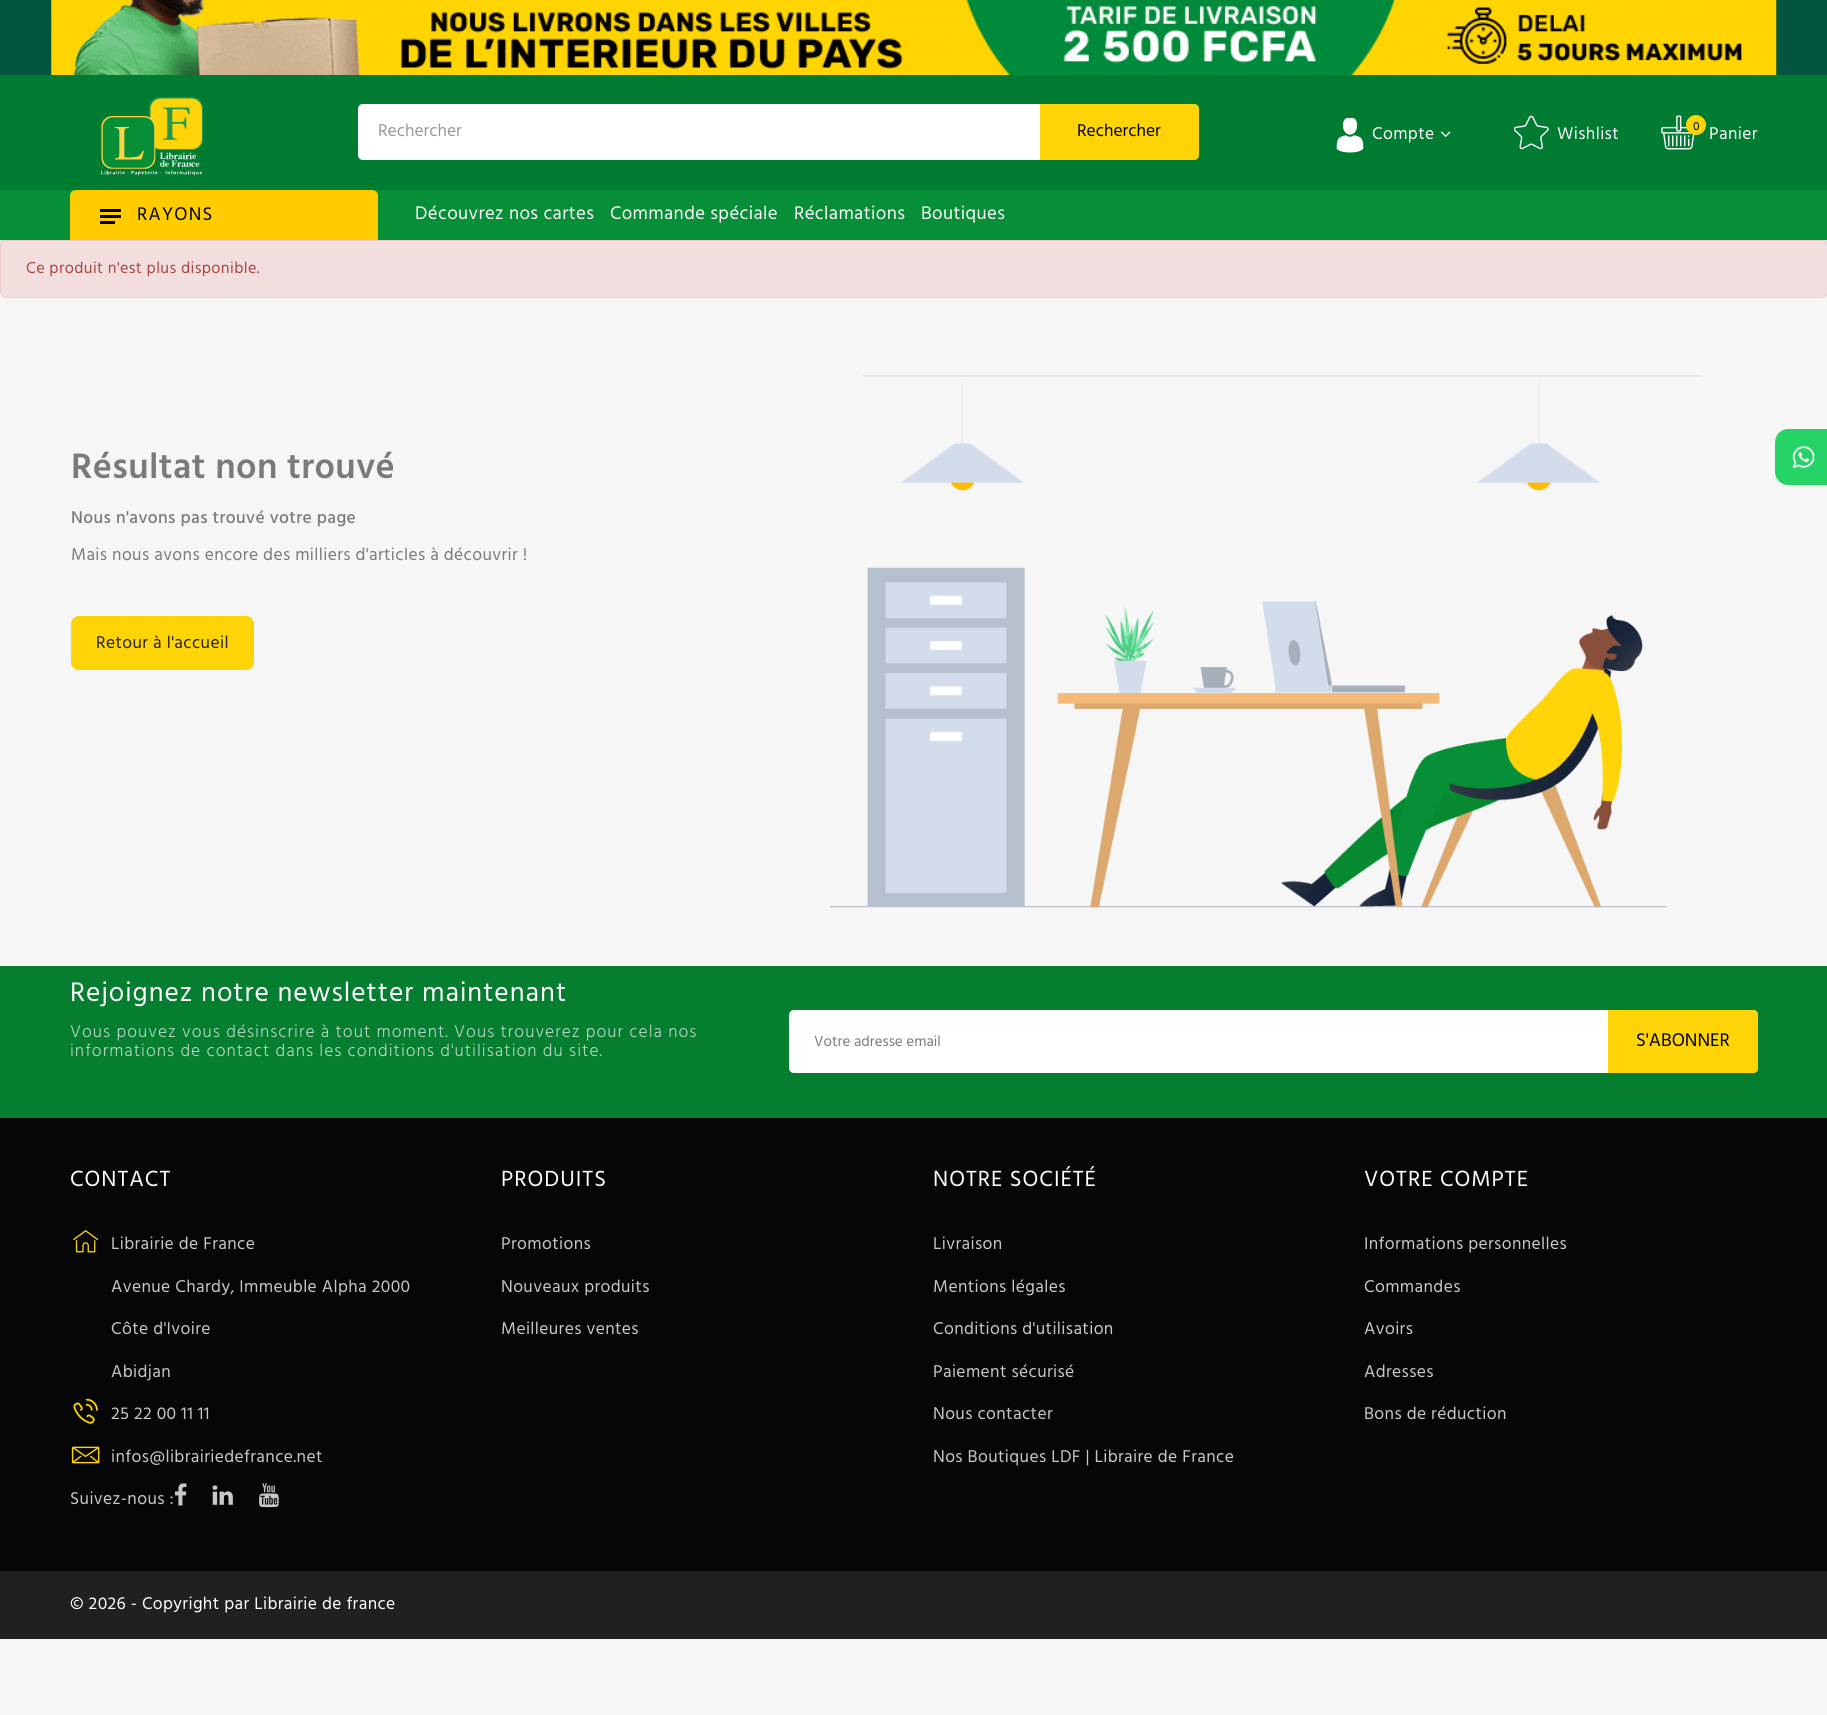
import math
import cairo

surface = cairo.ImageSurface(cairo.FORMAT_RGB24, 1827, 1715)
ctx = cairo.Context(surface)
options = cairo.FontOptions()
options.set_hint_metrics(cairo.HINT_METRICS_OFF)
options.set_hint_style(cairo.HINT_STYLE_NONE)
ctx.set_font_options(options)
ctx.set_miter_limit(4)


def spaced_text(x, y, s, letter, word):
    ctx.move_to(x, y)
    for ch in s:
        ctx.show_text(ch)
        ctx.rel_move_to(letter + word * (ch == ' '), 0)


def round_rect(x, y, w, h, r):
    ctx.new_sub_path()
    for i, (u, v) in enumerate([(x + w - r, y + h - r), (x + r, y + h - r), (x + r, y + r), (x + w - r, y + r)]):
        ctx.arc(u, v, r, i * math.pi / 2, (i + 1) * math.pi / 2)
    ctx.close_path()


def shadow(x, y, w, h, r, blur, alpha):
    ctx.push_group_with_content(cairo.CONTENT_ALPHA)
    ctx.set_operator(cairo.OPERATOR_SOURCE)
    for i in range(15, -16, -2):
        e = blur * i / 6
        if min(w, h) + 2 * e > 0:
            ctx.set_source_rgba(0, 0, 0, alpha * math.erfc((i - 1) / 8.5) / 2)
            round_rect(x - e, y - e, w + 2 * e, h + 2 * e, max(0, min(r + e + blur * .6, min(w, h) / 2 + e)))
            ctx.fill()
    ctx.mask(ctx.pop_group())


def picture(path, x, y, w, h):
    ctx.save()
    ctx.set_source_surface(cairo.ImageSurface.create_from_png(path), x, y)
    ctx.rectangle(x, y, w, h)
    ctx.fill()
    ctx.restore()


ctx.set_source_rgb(0.961, 0.961, 0.961)
ctx.paint()
ctx.set_source_rgb(0, 0, 0)
shadow(0, 0, 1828, 240, 0, 5, 0.2)
ctx.set_source_rgb(0.012, 0.333, 0.247)
ctx.rectangle(0, 0, 1827, 75)
ctx.fill()
picture("img1.png", 51, 0, 1726, 75)
ctx.set_source_rgb(0, 0.482, 0.196)
ctx.rectangle(0, 75, 1827, 115)
ctx.fill()
picture("img2.png", 101, 97, 102, 79)
ctx.set_source_rgb(1, 1, 1)
ctx.new_path()
ctx.move_to(363, 104)
ctx.line_to(1040, 104)
ctx.line_to(1040, 160)
ctx.line_to(363, 160)
ctx.curve_to(360, 160, 358, 158, 358, 155)
ctx.line_to(358, 109)
ctx.curve_to(358, 106, 360, 104, 363, 104)
ctx.close_path()
ctx.fill()
ctx.select_font_face("Hind")
ctx.set_font_size(17.5)
ctx.set_source_rgb(0.6, 0.6, 0.6)
ctx.move_to(378, 136)
ctx.show_text("Rechercher")
ctx.set_source_rgb(1, 0.831, 0.031)
ctx.new_path()
ctx.move_to(1040, 104)
ctx.line_to(1194, 104)
ctx.curve_to(1197, 104, 1199, 106, 1199, 109)
ctx.line_to(1199, 155)
ctx.curve_to(1199, 158, 1197, 160, 1194, 160)
ctx.line_to(1040, 160)
ctx.close_path()
ctx.fill()
ctx.set_source_rgb(0, 0, 0)
ctx.move_to(1077, 136)
ctx.show_text("Rechercher")
picture("img3.png", 1336, 118, 28, 35)
ctx.set_source_rgb(1, 1, 1)
spaced_text(1372, 139, "Compte", 0.38, 0)
picture("img4.png", 1440, 131, 11, 6)
picture("img5.png", 1514, 115, 35, 35)
spaced_text(1557, 139, "Wishlist", 0.38, 0)
picture("img6.png", 1661, 115, 34, 35)
ctx.set_source_rgb(1, 0.831, 0.031)
ctx.arc(1696, 125, 10, 0, 2 * math.pi)
ctx.fill()
ctx.set_font_size(12)
ctx.set_source_rgb(0, 0, 0)
spaced_text(1693, 130, "0", 0.38, 0)
ctx.set_font_size(17.5)
ctx.set_source_rgb(1, 1, 1)
spaced_text(1709, 139, "Panier", 0.38, 0)
ctx.set_source_rgb(0.024, 0.561, 0.212)
ctx.rectangle(0, 190, 1827, 50)
ctx.fill()
ctx.set_source_rgb(1, 0.8, 0)
ctx.new_path()
ctx.move_to(76, 190)
ctx.line_to(372, 190)
ctx.curve_to(375.5, 190, 378, 192.5, 378, 196)
ctx.line_to(378, 240)
ctx.line_to(70, 240)
ctx.line_to(70, 196)
ctx.curve_to(70, 192.5, 72.5, 190, 76, 190)
ctx.close_path()
ctx.fill()
ctx.set_source_rgb(0, 0, 0)
ctx.rectangle(100, 209, 21, 3)
ctx.fill()
ctx.rectangle(100, 215, 21, 3)
ctx.fill()
ctx.rectangle(100, 221, 15, 3)
ctx.fill()
ctx.set_font_size(18.75)
spaced_text(137, 220, "RAYONS", 1.25, 0)
ctx.set_source_rgb(1, 1, 1)
spaced_text(415, 219, "Découvrez nos cartes", 0.38, 0)
spaced_text(610, 219, "Commande spéciale", 0.38, 0)
spaced_text(794, 219, "Réclamations", 0.38, 0)
spaced_text(921, 219, "Boutiques", 0.38, 0)
ctx.set_source_rgb(0.949, 0.871, 0.871)
round_rect(0.5, 240.5, 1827, 57, 5.5)
ctx.fill_preserve()
ctx.set_source_rgb(0.922, 0.8, 0.8)
ctx.set_line_width(1)
ctx.stroke()
ctx.set_font_size(16.25)
ctx.set_source_rgb(0.663, 0.267, 0.259)
spaced_text(26, 273, "Ce produit n'est plus disponible.", 0.38, 0)
ctx.select_font_face("Hind SemiBold")
ctx.set_font_size(36.25)
ctx.set_source_rgb(0.478, 0.478, 0.478)
spaced_text(71, 478, "Résultat non trouvé", 0.38, 0)
ctx.select_font_face("Hind Medium")
ctx.set_font_size(17.5)
spaced_text(71, 523, "Nous n'avons pas trouvé votre page", 0.38, 0)
ctx.select_font_face("Hind")
spaced_text(71, 560, "Mais nous avons encore des milliers d'articles à découvrir !", 0.38, 0)
ctx.set_source_rgb(1, 0.831, 0.031)
round_rect(71, 616, 183, 54, 8)
ctx.fill()
ctx.set_source_rgb(0.133, 0.133, 0.133)
spaced_text(96, 648, "Retour à l'accueil", 0.38, 0)
picture("img7.png", 830, 375, 870, 533)
ctx.set_source_rgb(0.02, 0.494, 0.188)
ctx.rectangle(0, 966, 1827, 152)
ctx.fill()
ctx.set_font_size(27.5)
ctx.set_source_rgb(1, 1, 1)
spaced_text(70, 1001, "Rejoignez notre newsletter maintenant", 1, 0)
ctx.select_font_face("Hind Light")
ctx.set_font_size(17.5)
ctx.set_source_rgb(0.706, 0.847, 0.757)
spaced_text(70, 1037, "Vous pouvez vous désinscrire à tout moment. Vous trouverez pour cela nos", 1, 0)
spaced_text(70, 1056, "informations de contact dans les conditions d'utilisation du site.", 1, 0)
ctx.set_source_rgb(1, 1, 1)
round_rect(789, 1010, 969, 63, 5)
ctx.fill()
ctx.select_font_face("Hind")
ctx.set_font_size(15)
ctx.set_source_rgb(0.478, 0.478, 0.478)
ctx.move_to(814, 1046)
ctx.show_text("Votre adresse email")
ctx.set_source_rgb(1, 0.831, 0.031)
ctx.new_path()
ctx.move_to(1608, 1010)
ctx.line_to(1753, 1010)
ctx.curve_to(1756, 1010, 1758, 1012, 1758, 1015)
ctx.line_to(1758, 1068)
ctx.curve_to(1758, 1071, 1756, 1073, 1753, 1073)
ctx.line_to(1608, 1073)
ctx.close_path()
ctx.fill()
ctx.set_font_size(18.75)
ctx.set_source_rgb(0, 0, 0)
ctx.move_to(1636, 1046)
ctx.show_text("S'ABONNER")
ctx.set_source_rgb(0.024, 0.024, 0.024)
ctx.rectangle(0, 1118, 1827, 453)
ctx.fill()
ctx.set_font_size(22.5)
ctx.set_source_rgb(1, 1, 1)
spaced_text(70, 1186, "CONTACT", 1, 0)
picture("img8.png", 73, 1230, 26, 23)
ctx.set_font_size(17.5)
ctx.set_source_rgb(0.784, 0.784, 0.784)
spaced_text(111, 1249, "Librairie de France", 0.38, 0)
spaced_text(111, 1292, "Avenue Chardy, Immeuble Alpha 2000", 0.38, 0)
spaced_text(111, 1334, "Côte d'Ivoire", 0.38, 0)
spaced_text(111, 1377, "Abidjan", 0.38, 0)
picture("img9.png", 73, 1399, 25, 25)
spaced_text(111, 1419, "25 22 00 11 11", 0.38, 0)
picture("img10.png", 71, 1446, 29, 18)
spaced_text(111, 1462, "infos@librairiedefrance.net", 0.38, 0)
spaced_text(70, 1504, "Suivez-nous :", 0.38, 0)
picture("img11.png", 175, 1483, 12, 23)
picture("img12.png", 212, 1485, 21, 20)
picture("img13.png", 259, 1483, 20, 25)
ctx.set_font_size(22.5)
ctx.set_source_rgb(1, 1, 1)
spaced_text(501, 1186, "PRODUITS", 1, 0)
ctx.set_font_size(17.5)
ctx.set_source_rgb(0.784, 0.784, 0.784)
spaced_text(501, 1249, "Promotions", 0.38, 0)
spaced_text(501, 1292, "Nouveaux produits", 0.38, 0)
spaced_text(501, 1334, "Meilleures ventes", 0.38, 0)
ctx.set_font_size(22.5)
ctx.set_source_rgb(1, 1, 1)
spaced_text(933, 1186, "NOTRE SOCIÉTÉ", 1, 0)
ctx.set_font_size(17.5)
ctx.set_source_rgb(0.784, 0.784, 0.784)
spaced_text(933, 1249, "Livraison", 0.38, 0)
spaced_text(933, 1292, "Mentions légales", 0.38, 0)
spaced_text(933, 1334, "Conditions d'utilisation", 0.38, 0)
spaced_text(933, 1377, "Paiement sécurisé", 0.38, 0)
spaced_text(933, 1419, "Nous contacter", 0.38, 0)
spaced_text(933, 1462, "Nos Boutiques LDF | Libraire de France", 0.38, 0)
ctx.set_font_size(22.5)
ctx.set_source_rgb(1, 1, 1)
spaced_text(1364, 1186, "VOTRE COMPTE", 1, 0)
ctx.set_font_size(17.5)
ctx.set_source_rgb(0.784, 0.784, 0.784)
spaced_text(1364, 1249, "Informations personnelles", 0.38, 0)
spaced_text(1364, 1292, "Commandes", 0.38, 0)
spaced_text(1364, 1334, "Avoirs", 0.38, 0)
spaced_text(1364, 1377, "Adresses", 0.38, 0)
spaced_text(1364, 1419, "Bons de réduction", 0.38, 0)
ctx.set_source_rgb(0.125, 0.125, 0.125)
ctx.rectangle(0, 1571, 1827, 68)
ctx.fill()
ctx.set_source_rgb(1, 1, 1)
spaced_text(70, 1609, "© 2026 - Copyright par Librairie de france", 0.38, 0)
ctx.set_source_rgb(0.145, 0.827, 0.4)
ctx.new_path()
ctx.move_to(1788, 429)
ctx.line_to(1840, 429)
ctx.line_to(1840, 485)
ctx.line_to(1788, 485)
ctx.curve_to(1781, 485, 1775, 479, 1775, 472)
ctx.line_to(1775, 442)
ctx.curve_to(1775, 435, 1781, 429, 1788, 429)
ctx.close_path()
ctx.fill()
picture("img14.png", 1792, 446, 23, 22)
surface.write_to_png("page.png")
